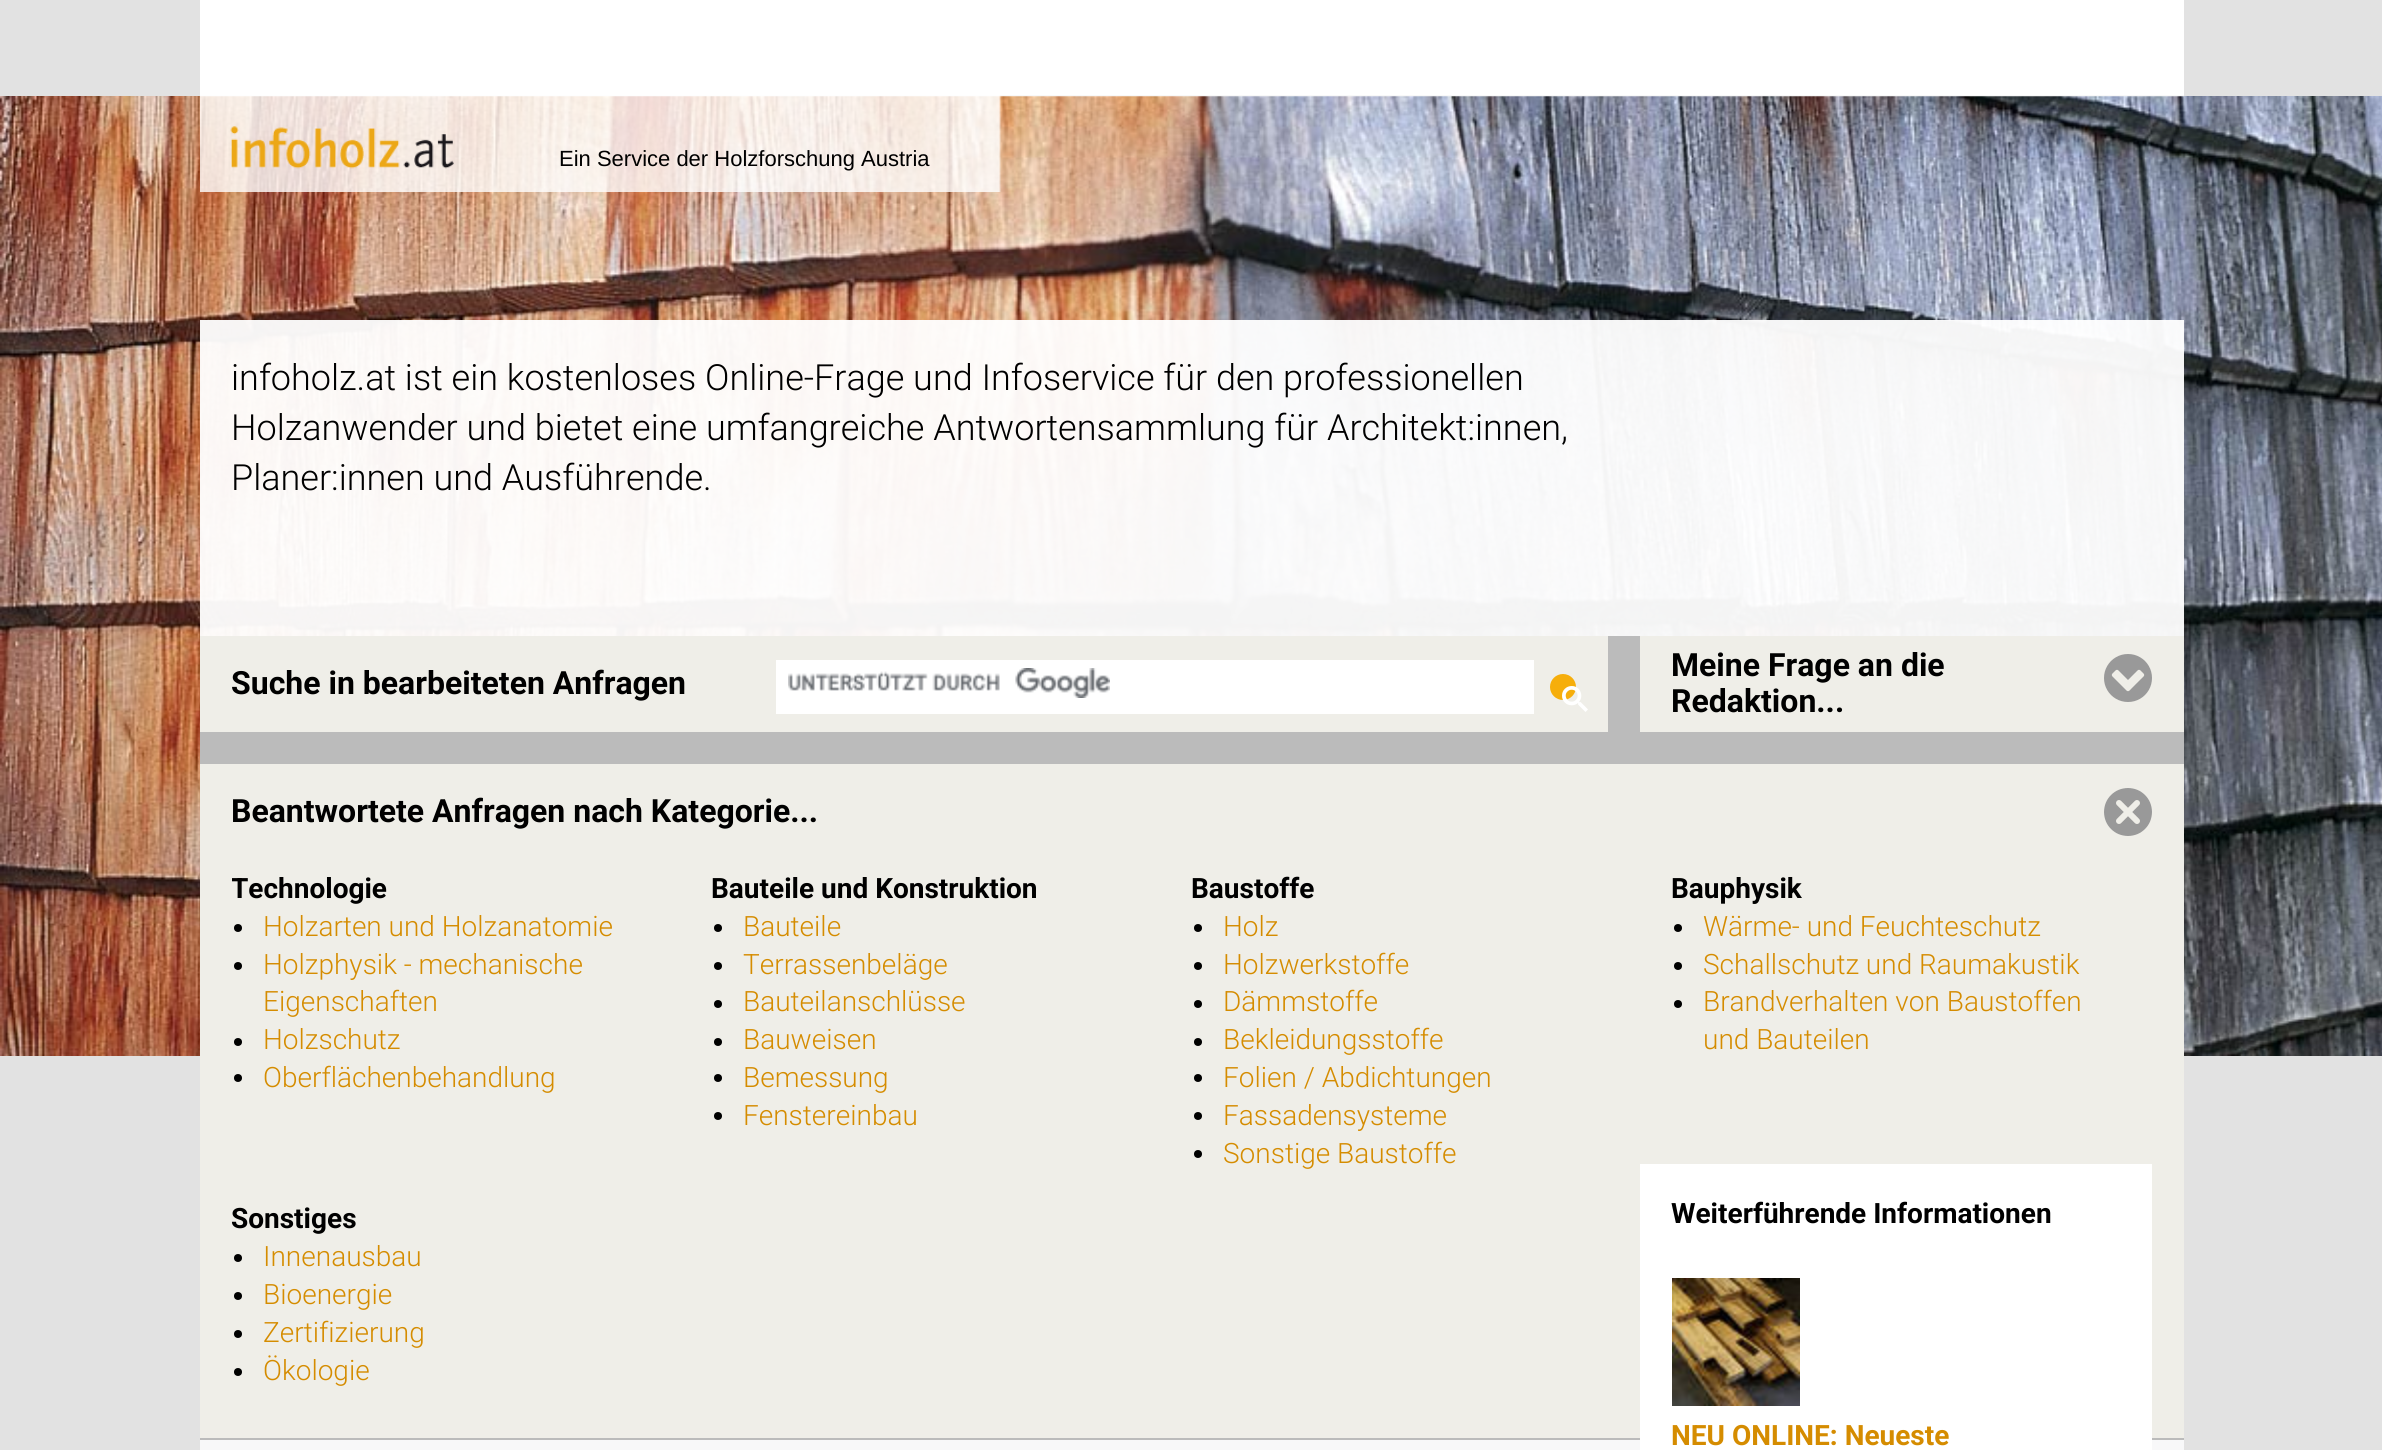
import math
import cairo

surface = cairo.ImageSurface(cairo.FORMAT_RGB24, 2382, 1450)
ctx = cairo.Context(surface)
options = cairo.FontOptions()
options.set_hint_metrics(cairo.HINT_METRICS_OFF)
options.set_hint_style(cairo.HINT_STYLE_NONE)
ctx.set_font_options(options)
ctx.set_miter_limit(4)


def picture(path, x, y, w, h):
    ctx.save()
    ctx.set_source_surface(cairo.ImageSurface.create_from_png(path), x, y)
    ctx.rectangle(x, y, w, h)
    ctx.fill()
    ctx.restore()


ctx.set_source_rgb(0.886, 0.886, 0.886)
ctx.paint()
picture("img1.png", 0, 96, 2382, 960)
picture("img2.png", 200, 0, 1984, 192)
picture("img3.png", 230, 126, 224, 43)
ctx.select_font_face("Liberation Sans")
ctx.set_font_size(22)
ctx.set_source_rgb(0, 0, 0)
ctx.move_to(559, 166)
ctx.show_text("Ein Service der Holzforschung Austria")
ctx.set_source_rgba(1, 1, 1, 0.95)
ctx.rectangle(200, 320, 1984, 316)
ctx.fill()
ctx.select_font_face("Roboto Light")
ctx.set_font_size(36)
ctx.set_source_rgb(0, 0, 0)
ctx.move_to(231, 390)
ctx.show_text("infoholz.at ist ein kostenloses Online-Frage und Infoservice für den professionellen")
ctx.move_to(231, 440)
ctx.show_text("Holzanwender und bietet eine umfangreiche Antwortensammlung für Architekt:innen,")
ctx.move_to(231, 490)
ctx.show_text("Planer:innen und Ausführende.")
ctx.set_source_rgb(0.969, 0.969, 0.973)
ctx.rectangle(200, 1440, 1984, 10)
ctx.fill()
ctx.set_source_rgb(0.733, 0.733, 0.733)
ctx.rectangle(200, 636, 1984, 804)
ctx.fill()
ctx.set_source_rgb(0.937, 0.933, 0.91)
ctx.rectangle(200, 636, 1408, 96)
ctx.fill()
ctx.select_font_face("Roboto", cairo.FONT_SLANT_NORMAL, cairo.FONT_WEIGHT_BOLD)
ctx.set_font_size(32)
ctx.set_source_rgb(0, 0, 0)
ctx.move_to(231, 694)
ctx.show_text("Suche in bearbeiteten Anfragen")
ctx.set_source_rgb(1, 1, 1)
ctx.rectangle(776, 660, 758, 54)
ctx.fill()
picture("img4.png", 788, 668, 322, 30)
ctx.set_source_rgb(0.961, 0.682, 0.043)
ctx.arc(1563, 687, 7, 0, 2 * math.pi)
ctx.fill_preserve()
ctx.set_line_width(12)
ctx.stroke()
picture("img5.png", 1562, 686, 26, 26)
ctx.set_source_rgb(0.937, 0.933, 0.91)
ctx.rectangle(1640, 636, 544, 96)
ctx.fill()
ctx.set_source_rgb(0, 0, 0)
ctx.move_to(1671, 676)
ctx.show_text("Meine Frage an die")
picture("img6.png", 2104, 654, 48, 48)
ctx.move_to(1671, 712)
ctx.show_text("Redaktion...")
ctx.set_source_rgb(0.937, 0.933, 0.91)
ctx.rectangle(200, 764, 1984, 674)
ctx.fill()
ctx.set_source_rgb(0, 0, 0)
ctx.move_to(231, 822)
ctx.show_text("Beantwortete Anfragen nach Kategorie...")
picture("img7.png", 2104, 788, 48, 48)
ctx.save()
ctx.rectangle(232, 870, 1920, 548)
ctx.clip()
ctx.set_font_size(28)
ctx.move_to(231, 898)
ctx.show_text("Technologie")
ctx.restore()
ctx.new_path()
ctx.arc(238, 928, 4, 0, 2 * math.pi)
ctx.fill()
ctx.select_font_face("Roboto Light")
ctx.set_font_size(28)
ctx.set_source_rgb(0.835, 0.549, 0)
ctx.move_to(263, 936)
ctx.show_text("Holzarten und Holzanatomie")
ctx.set_source_rgb(0, 0, 0)
ctx.new_path()
ctx.arc(238, 966, 4, 0, 2 * math.pi)
ctx.fill()
ctx.set_source_rgb(0.835, 0.549, 0)
ctx.move_to(263, 974)
ctx.show_text("Holzphysik - mechanische")
ctx.move_to(263, 1011)
ctx.show_text("Eigenschaften")
ctx.set_source_rgb(0, 0, 0)
ctx.new_path()
ctx.arc(238, 1042, 4, 0, 2 * math.pi)
ctx.fill()
ctx.set_source_rgb(0.835, 0.549, 0)
ctx.move_to(263, 1049)
ctx.show_text("Holzschutz")
ctx.set_source_rgb(0, 0, 0)
ctx.new_path()
ctx.arc(238, 1078, 4, 0, 2 * math.pi)
ctx.fill()
ctx.set_source_rgb(0.835, 0.549, 0)
ctx.move_to(263, 1087)
ctx.show_text("Oberflächenbehandlung")
ctx.select_font_face("Roboto", cairo.FONT_SLANT_NORMAL, cairo.FONT_WEIGHT_BOLD)
ctx.set_source_rgb(0, 0, 0)
ctx.move_to(711, 898)
ctx.show_text("Bauteile und Konstruktion")
ctx.new_path()
ctx.arc(718, 928, 4, 0, 2 * math.pi)
ctx.fill()
ctx.select_font_face("Roboto Light")
ctx.set_source_rgb(0.835, 0.549, 0)
ctx.move_to(743, 936)
ctx.show_text("Bauteile")
ctx.set_source_rgb(0, 0, 0)
ctx.new_path()
ctx.arc(718, 966, 4, 0, 2 * math.pi)
ctx.fill()
ctx.set_source_rgb(0.835, 0.549, 0)
ctx.move_to(743, 974)
ctx.show_text("Terrassenbeläge")
ctx.set_source_rgb(0, 0, 0)
ctx.new_path()
ctx.arc(718, 1004, 4, 0, 2 * math.pi)
ctx.fill()
ctx.set_source_rgb(0.835, 0.549, 0)
ctx.move_to(743, 1011)
ctx.show_text("Bauteilanschlüsse")
ctx.set_source_rgb(0, 0, 0)
ctx.new_path()
ctx.arc(718, 1042, 4, 0, 2 * math.pi)
ctx.fill()
ctx.set_source_rgb(0.835, 0.549, 0)
ctx.move_to(743, 1049)
ctx.show_text("Bauweisen")
ctx.set_source_rgb(0, 0, 0)
ctx.new_path()
ctx.arc(718, 1078, 4, 0, 2 * math.pi)
ctx.fill()
ctx.set_source_rgb(0.835, 0.549, 0)
ctx.move_to(743, 1087)
ctx.show_text("Bemessung")
ctx.set_source_rgb(0, 0, 0)
ctx.new_path()
ctx.arc(718, 1116, 4, 0, 2 * math.pi)
ctx.fill()
ctx.set_source_rgb(0.835, 0.549, 0)
ctx.move_to(743, 1125)
ctx.show_text("Fenstereinbau")
ctx.select_font_face("Roboto", cairo.FONT_SLANT_NORMAL, cairo.FONT_WEIGHT_BOLD)
ctx.set_source_rgb(0, 0, 0)
ctx.move_to(1191, 898)
ctx.show_text("Baustoffe")
ctx.new_path()
ctx.arc(1198, 928, 4, 0, 2 * math.pi)
ctx.fill()
ctx.select_font_face("Roboto Light")
ctx.set_source_rgb(0.835, 0.549, 0)
ctx.move_to(1223, 936)
ctx.show_text("Holz")
ctx.set_source_rgb(0, 0, 0)
ctx.new_path()
ctx.arc(1198, 966, 4, 0, 2 * math.pi)
ctx.fill()
ctx.set_source_rgb(0.835, 0.549, 0)
ctx.move_to(1223, 974)
ctx.show_text("Holzwerkstoffe")
ctx.set_source_rgb(0, 0, 0)
ctx.new_path()
ctx.arc(1198, 1004, 4, 0, 2 * math.pi)
ctx.fill()
ctx.set_source_rgb(0.835, 0.549, 0)
ctx.move_to(1223, 1011)
ctx.show_text("Dämmstoffe")
ctx.set_source_rgb(0, 0, 0)
ctx.new_path()
ctx.arc(1198, 1042, 4, 0, 2 * math.pi)
ctx.fill()
ctx.set_source_rgb(0.835, 0.549, 0)
ctx.move_to(1223, 1049)
ctx.show_text("Bekleidungsstoffe")
ctx.set_source_rgb(0, 0, 0)
ctx.new_path()
ctx.arc(1198, 1078, 4, 0, 2 * math.pi)
ctx.fill()
ctx.set_source_rgb(0.835, 0.549, 0)
ctx.move_to(1223, 1087)
ctx.show_text("Folien / Abdichtungen")
ctx.set_source_rgb(0, 0, 0)
ctx.new_path()
ctx.arc(1198, 1116, 4, 0, 2 * math.pi)
ctx.fill()
ctx.set_source_rgb(0.835, 0.549, 0)
ctx.move_to(1223, 1125)
ctx.show_text("Fassadensysteme")
ctx.set_source_rgb(0, 0, 0)
ctx.new_path()
ctx.arc(1198, 1154, 4, 0, 2 * math.pi)
ctx.fill()
ctx.set_source_rgb(0.835, 0.549, 0)
ctx.move_to(1223, 1163)
ctx.show_text("Sonstige Baustoffe")
ctx.select_font_face("Roboto", cairo.FONT_SLANT_NORMAL, cairo.FONT_WEIGHT_BOLD)
ctx.set_source_rgb(0, 0, 0)
ctx.move_to(1671, 898)
ctx.show_text("Bauphysik")
ctx.new_path()
ctx.arc(1678, 928, 4, 0, 2 * math.pi)
ctx.fill()
ctx.select_font_face("Roboto Light")
ctx.set_source_rgb(0.835, 0.549, 0)
ctx.move_to(1703, 936)
ctx.show_text("Wärme- und Feuchteschutz")
ctx.set_source_rgb(0, 0, 0)
ctx.new_path()
ctx.arc(1678, 966, 4, 0, 2 * math.pi)
ctx.fill()
ctx.set_source_rgb(0.835, 0.549, 0)
ctx.move_to(1703, 974)
ctx.show_text("Schallschutz und Raumakustik")
ctx.set_source_rgb(0, 0, 0)
ctx.new_path()
ctx.arc(1678, 1004, 4, 0, 2 * math.pi)
ctx.fill()
ctx.set_source_rgb(0.835, 0.549, 0)
ctx.move_to(1703, 1011)
ctx.show_text("Brandverhalten von Baustoffen")
ctx.move_to(1703, 1049)
ctx.show_text("und Bauteilen")
ctx.select_font_face("Roboto", cairo.FONT_SLANT_NORMAL, cairo.FONT_WEIGHT_BOLD)
ctx.set_source_rgb(0, 0, 0)
ctx.move_to(231, 1228)
ctx.show_text("Sonstiges")
ctx.new_path()
ctx.arc(238, 1258, 4, 0, 2 * math.pi)
ctx.fill()
ctx.select_font_face("Roboto Light")
ctx.set_source_rgb(0.835, 0.549, 0)
ctx.move_to(263, 1266)
ctx.show_text("Innenausbau")
ctx.set_source_rgb(0, 0, 0)
ctx.new_path()
ctx.arc(238, 1296, 4, 0, 2 * math.pi)
ctx.fill()
ctx.set_source_rgb(0.835, 0.549, 0)
ctx.move_to(263, 1304)
ctx.show_text("Bioenergie")
ctx.set_source_rgb(0, 0, 0)
ctx.new_path()
ctx.arc(238, 1334, 4, 0, 2 * math.pi)
ctx.fill()
ctx.set_source_rgb(0.835, 0.549, 0)
ctx.move_to(263, 1342)
ctx.show_text("Zertifizierung")
ctx.set_source_rgb(0, 0, 0)
ctx.new_path()
ctx.arc(238, 1372, 4, 0, 2 * math.pi)
ctx.fill()
ctx.set_source_rgb(0.835, 0.549, 0)
ctx.move_to(263, 1380)
ctx.show_text("Ökologie")
ctx.set_source_rgb(1, 1, 1)
ctx.rectangle(1640, 1164, 512, 286)
ctx.fill()
ctx.select_font_face("Roboto", cairo.FONT_SLANT_NORMAL, cairo.FONT_WEIGHT_BOLD)
ctx.set_source_rgb(0, 0, 0)
ctx.move_to(1671, 1223)
ctx.show_text("Weiterführende Informationen")
picture("img8.png", 1672, 1278, 128, 128)
ctx.set_source_rgb(0.835, 0.549, 0)
ctx.move_to(1671, 1445)
ctx.show_text("NEU ONLINE: Neueste")
surface.write_to_png("page.png")
